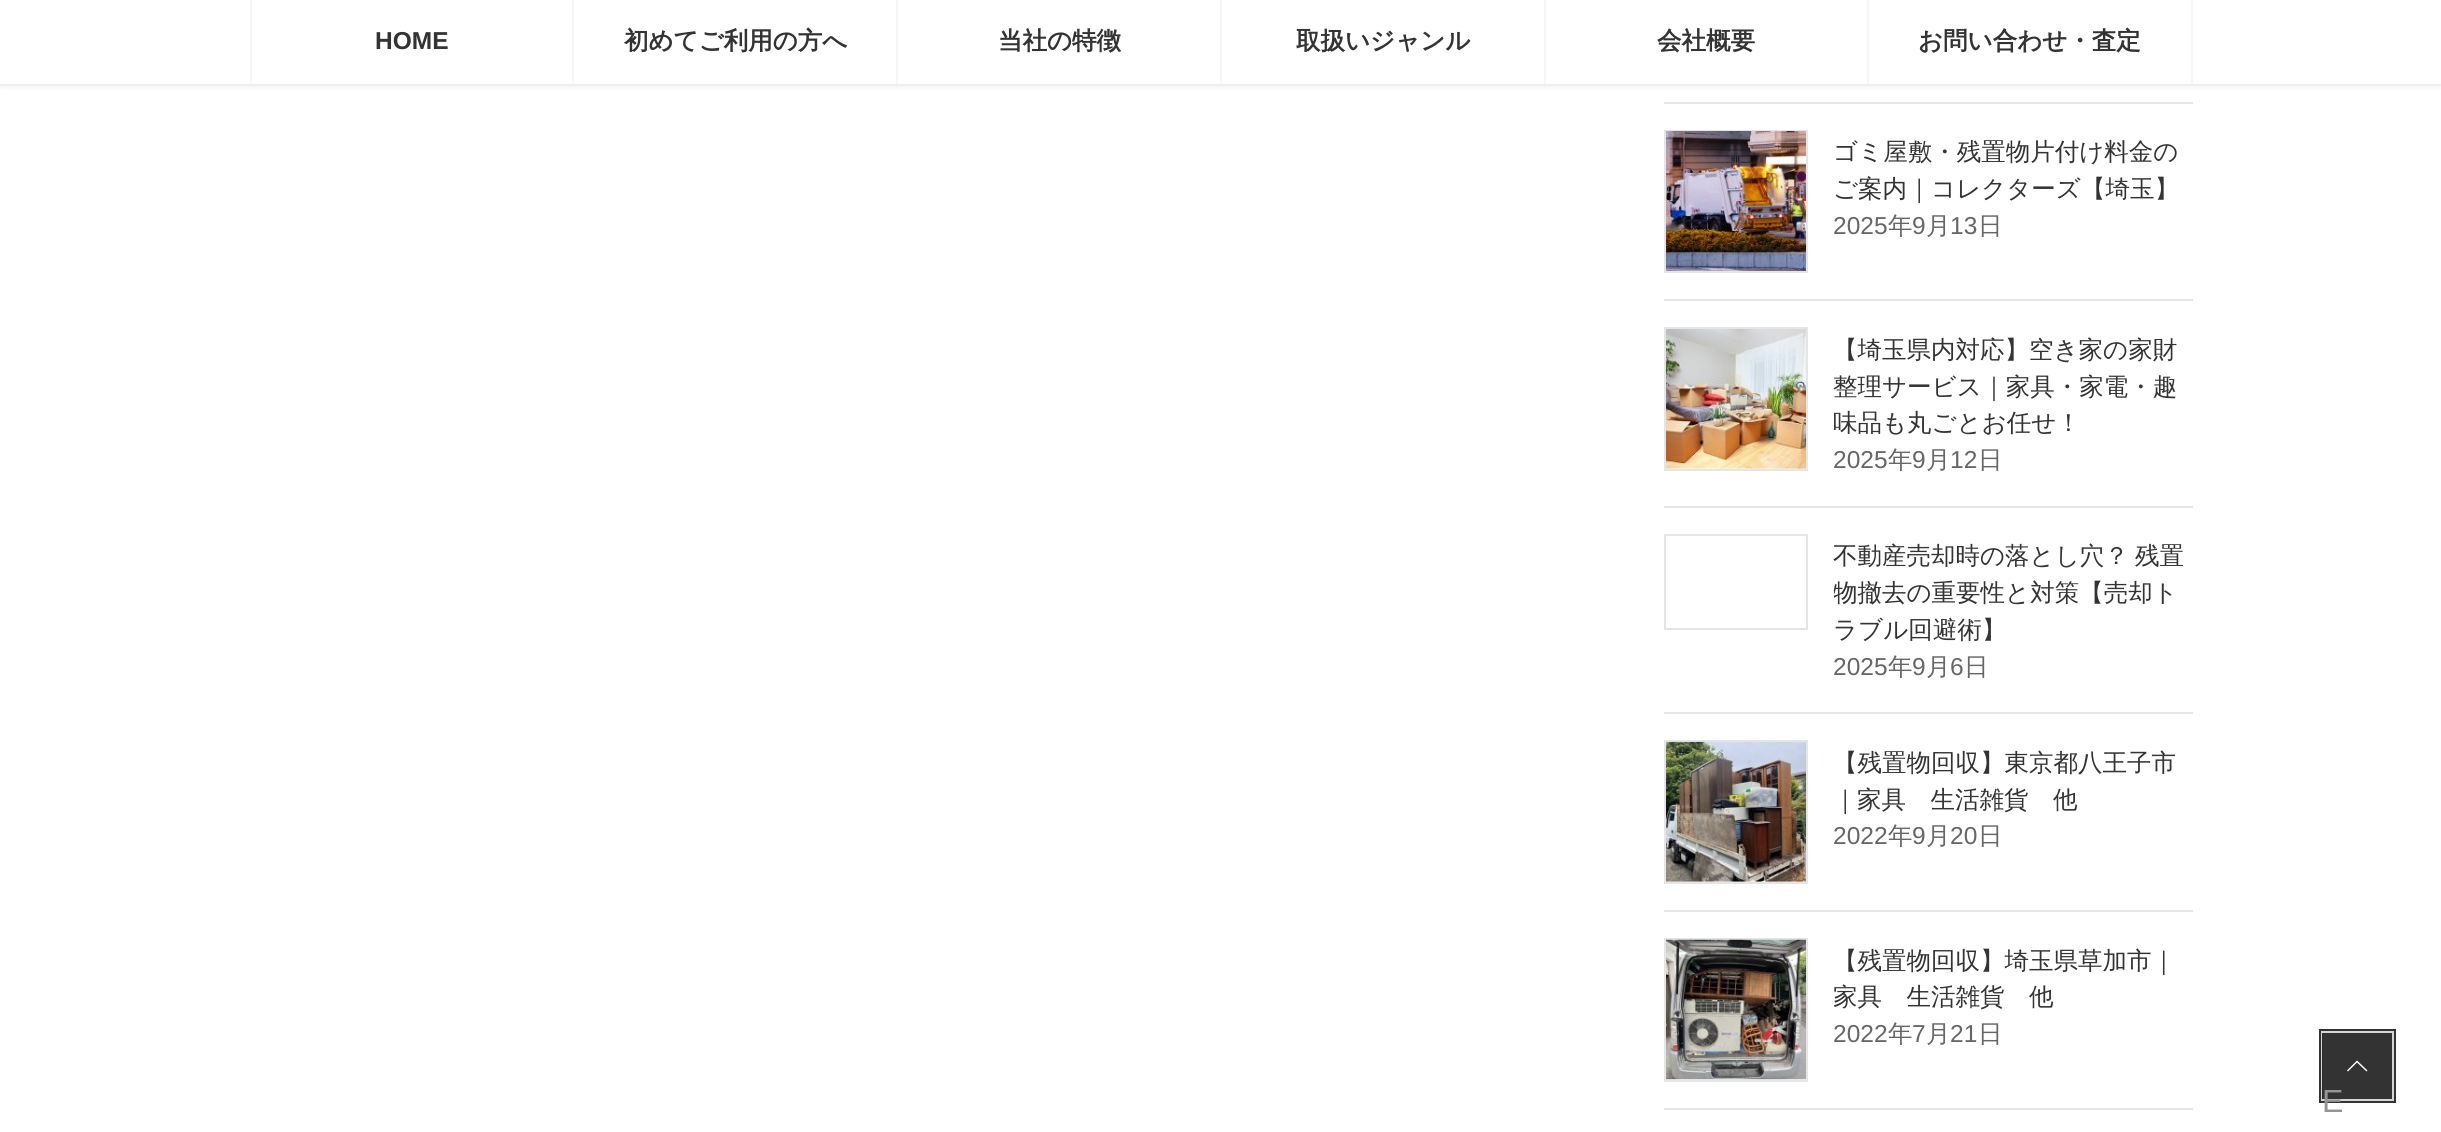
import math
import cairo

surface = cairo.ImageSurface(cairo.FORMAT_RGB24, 2441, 1132)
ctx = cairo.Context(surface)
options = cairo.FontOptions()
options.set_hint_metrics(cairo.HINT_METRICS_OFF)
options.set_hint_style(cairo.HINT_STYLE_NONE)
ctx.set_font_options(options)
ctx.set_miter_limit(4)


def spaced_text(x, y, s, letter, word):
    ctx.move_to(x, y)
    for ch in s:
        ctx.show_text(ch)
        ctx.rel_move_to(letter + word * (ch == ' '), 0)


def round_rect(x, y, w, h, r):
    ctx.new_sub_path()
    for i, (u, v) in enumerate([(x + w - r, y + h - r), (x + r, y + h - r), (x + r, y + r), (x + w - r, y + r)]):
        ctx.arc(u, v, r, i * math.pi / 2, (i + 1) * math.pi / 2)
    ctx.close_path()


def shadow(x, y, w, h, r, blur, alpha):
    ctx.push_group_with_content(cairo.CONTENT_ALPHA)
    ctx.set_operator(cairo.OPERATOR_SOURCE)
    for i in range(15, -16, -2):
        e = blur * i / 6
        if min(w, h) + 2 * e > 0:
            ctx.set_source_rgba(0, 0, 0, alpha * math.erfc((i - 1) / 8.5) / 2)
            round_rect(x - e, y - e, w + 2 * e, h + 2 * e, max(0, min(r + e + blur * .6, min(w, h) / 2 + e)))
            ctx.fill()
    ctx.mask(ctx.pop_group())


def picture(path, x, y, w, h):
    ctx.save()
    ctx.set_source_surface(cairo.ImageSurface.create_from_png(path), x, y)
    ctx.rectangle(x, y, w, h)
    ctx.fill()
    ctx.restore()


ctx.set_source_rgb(1, 1, 1)
ctx.paint()
ctx.set_source_rgb(0, 0, 0)
shadow(0, 2, 2441, 84, 0, 2.5, 0.1)
ctx.set_source_rgb(1, 1, 1)
ctx.rectangle(0, 0, 2441, 84)
ctx.fill()
ctx.set_source_rgb(0.961, 0.961, 0.961)
ctx.rectangle(250, 0, 2, 84)
ctx.fill()
ctx.select_font_face("Liberation Sans", cairo.FONT_SLANT_NORMAL, cairo.FONT_WEIGHT_BOLD)
ctx.set_font_size(24.5)
ctx.set_source_rgb(0.2, 0.2, 0.2)
ctx.move_to(375, 49)
ctx.show_text("HOME")
ctx.set_source_rgb(0.961, 0.961, 0.961)
ctx.rectangle(572, 0, 2, 84)
ctx.fill()
ctx.select_font_face("WenQuanYi Zen Hei", cairo.FONT_SLANT_NORMAL, cairo.FONT_WEIGHT_BOLD)
ctx.set_source_rgb(0.2, 0.2, 0.2)
ctx.move_to(624, 49)
ctx.show_text("初めてご利用の方へ")
ctx.set_source_rgb(0.961, 0.961, 0.961)
ctx.rectangle(896, 0, 2, 84)
ctx.fill()
ctx.set_source_rgb(0.2, 0.2, 0.2)
ctx.move_to(998, 49)
ctx.show_text("当社の特徴")
ctx.set_source_rgb(0.961, 0.961, 0.961)
ctx.rectangle(1220, 0, 2, 84)
ctx.fill()
ctx.set_source_rgb(0.2, 0.2, 0.2)
ctx.move_to(1296, 49)
ctx.show_text("取扱いジャンル")
ctx.set_source_rgb(0.961, 0.961, 0.961)
ctx.rectangle(1544, 0, 2, 84)
ctx.fill()
ctx.set_source_rgb(0.2, 0.2, 0.2)
ctx.move_to(1657, 49)
ctx.show_text("会社概要")
ctx.set_source_rgb(0.961, 0.961, 0.961)
ctx.rectangle(2191, 0, 2, 84)
ctx.fill()
ctx.rectangle(1867, 0, 2, 84)
ctx.fill()
ctx.set_source_rgb(0.2, 0.2, 0.2)
ctx.move_to(1918, 49)
ctx.show_text("お問い合わせ・査定")
ctx.set_source_rgb(0.898, 0.898, 0.898)
ctx.rectangle(1664, 102, 529, 2)
ctx.fill()
ctx.rectangle(1664, 299, 529, 2)
ctx.fill()
ctx.rectangle(1665, 131, 142, 141)
ctx.stroke()
picture("img1.png", 1666, 131, 140, 140)
ctx.select_font_face("WenQuanYi Zen Hei Medium")
ctx.set_source_rgb(0.2, 0.2, 0.2)
ctx.move_to(1833, 160)
ctx.show_text("ゴミ屋敷・残置物片付け料金の")
ctx.move_to(1833, 197)
ctx.show_text("ご案内｜コレクターズ【埼玉】")
ctx.select_font_face("Liberation Sans")
ctx.set_source_rgb(0.4, 0.4, 0.4)
ctx.move_to(1833, 234)
ctx.show_text("2025")
ctx.select_font_face("WenQuanYi Zen Hei Medium")
ctx.move_to(1888, 234)
ctx.show_text("年")
ctx.select_font_face("Liberation Sans")
ctx.move_to(1912, 234)
ctx.show_text("9")
ctx.select_font_face("WenQuanYi Zen Hei Medium")
ctx.move_to(1926, 234)
ctx.show_text("月")
ctx.select_font_face("Liberation Sans")
ctx.move_to(1950, 234)
ctx.show_text("13")
ctx.select_font_face("WenQuanYi Zen Hei Medium")
ctx.move_to(1978, 234)
ctx.show_text("日")
ctx.set_source_rgb(0.898, 0.898, 0.898)
ctx.rectangle(1664, 506, 529, 2)
ctx.fill()
ctx.rectangle(1665, 328, 142, 142)
ctx.stroke()
picture("img2.png", 1666, 329, 140, 140)
ctx.set_source_rgb(0.2, 0.2, 0.2)
ctx.move_to(1833, 358)
ctx.show_text("【埼玉県内対応】空き家の家財")
ctx.move_to(1833, 395)
ctx.show_text("整理サービス｜家具・家電・趣")
ctx.move_to(1833, 431)
ctx.show_text("味品も丸ごとお任せ！")
ctx.select_font_face("Liberation Sans")
ctx.set_source_rgb(0.4, 0.4, 0.4)
ctx.move_to(1833, 468)
ctx.show_text("2025")
ctx.select_font_face("WenQuanYi Zen Hei Medium")
ctx.move_to(1888, 468)
ctx.show_text("年")
ctx.select_font_face("Liberation Sans")
ctx.move_to(1912, 468)
ctx.show_text("9")
ctx.select_font_face("WenQuanYi Zen Hei Medium")
ctx.move_to(1926, 468)
ctx.show_text("月")
ctx.select_font_face("Liberation Sans")
ctx.move_to(1950, 468)
ctx.show_text("12")
ctx.select_font_face("WenQuanYi Zen Hei Medium")
ctx.move_to(1978, 468)
ctx.show_text("日")
ctx.set_source_rgb(0.898, 0.898, 0.898)
ctx.rectangle(1664, 712, 529, 2)
ctx.fill()
ctx.rectangle(1665, 535, 142, 94)
ctx.stroke()
ctx.set_source_rgb(0.2, 0.2, 0.2)
spaced_text(1833, 564, "不動産売却時の落とし穴？ 残置", 0, -1)
ctx.save()
ctx.rectangle(1834, 534, 359, 152)
ctx.clip()
ctx.move_to(1833, 601)
ctx.show_text("物撤去の重要性と対策【売却ト")
ctx.restore()
ctx.move_to(1833, 638)
ctx.show_text("ラブル回避術】")
ctx.select_font_face("Liberation Sans")
ctx.set_source_rgb(0.4, 0.4, 0.4)
ctx.move_to(1833, 675)
ctx.show_text("2025")
ctx.select_font_face("WenQuanYi Zen Hei Medium")
ctx.move_to(1888, 675)
ctx.show_text("年")
ctx.select_font_face("Liberation Sans")
ctx.move_to(1912, 675)
ctx.show_text("9")
ctx.select_font_face("WenQuanYi Zen Hei Medium")
ctx.move_to(1926, 675)
ctx.show_text("月")
ctx.select_font_face("Liberation Sans")
ctx.move_to(1950, 675)
ctx.show_text("6")
ctx.select_font_face("WenQuanYi Zen Hei Medium")
ctx.move_to(1964, 675)
ctx.show_text("日")
ctx.set_source_rgb(0.898, 0.898, 0.898)
ctx.rectangle(1664, 910, 529, 2)
ctx.fill()
ctx.rectangle(1665, 741, 142, 142)
ctx.stroke()
picture("img3.png", 1666, 741, 140, 141)
ctx.set_source_rgb(0.2, 0.2, 0.2)
ctx.move_to(1833, 771)
ctx.show_text("【残置物回収】東京都八王子市")
ctx.move_to(1833, 808)
ctx.show_text("｜家具　生活雑貨　他")
ctx.select_font_face("Liberation Sans")
ctx.set_source_rgb(0.4, 0.4, 0.4)
ctx.move_to(1833, 844)
ctx.show_text("2022")
ctx.select_font_face("WenQuanYi Zen Hei Medium")
ctx.move_to(1888, 844)
ctx.show_text("年")
ctx.select_font_face("Liberation Sans")
ctx.move_to(1912, 844)
ctx.show_text("9")
ctx.select_font_face("WenQuanYi Zen Hei Medium")
ctx.move_to(1926, 844)
ctx.show_text("月")
ctx.select_font_face("Liberation Sans")
ctx.move_to(1950, 844)
ctx.show_text("20")
ctx.select_font_face("WenQuanYi Zen Hei Medium")
ctx.move_to(1978, 844)
ctx.show_text("日")
ctx.set_source_rgb(0.898, 0.898, 0.898)
ctx.rectangle(1664, 1108, 529, 2)
ctx.fill()
ctx.rectangle(1665, 939, 142, 142)
ctx.stroke()
picture("img4.png", 1666, 939, 140, 141)
ctx.set_source_rgb(0.2, 0.2, 0.2)
ctx.move_to(1833, 969)
ctx.show_text("【残置物回収】埼玉県草加市｜")
ctx.move_to(1833, 1005)
ctx.show_text("家具　生活雑貨　他")
ctx.select_font_face("Liberation Sans")
ctx.set_source_rgb(0.4, 0.4, 0.4)
ctx.move_to(1833, 1042)
ctx.show_text("2022")
ctx.select_font_face("WenQuanYi Zen Hei Medium")
ctx.move_to(1888, 1042)
ctx.show_text("年")
ctx.select_font_face("Liberation Sans")
ctx.move_to(1912, 1042)
ctx.show_text("7")
ctx.select_font_face("WenQuanYi Zen Hei Medium")
ctx.move_to(1926, 1042)
ctx.show_text("月")
ctx.select_font_face("Liberation Sans")
ctx.move_to(1950, 1042)
ctx.show_text("21")
ctx.select_font_face("WenQuanYi Zen Hei Medium")
ctx.move_to(1978, 1042)
ctx.show_text("日")
ctx.rectangle(2321, 1031, 73, 70)
ctx.set_source_rgb(0.2, 0.2, 0.2)
ctx.set_line_width(4)
ctx.stroke()
ctx.rectangle(2322, 1032, 71, 68)
ctx.set_source_rgb(0.839, 0.839, 0.839)
ctx.set_line_width(2)
ctx.stroke()
ctx.set_source_rgba(0, 0, 0, 0.8)
ctx.rectangle(2322, 1033, 70, 66)
ctx.fill()
ctx.set_source_rgb(1, 1, 1)
ctx.new_path()
ctx.move_to(2367.5, 1070.5)
ctx.line_to(2366.5, 1071.5)
ctx.line_to(2357, 1062.5)
ctx.line_to(2348, 1071.5)
ctx.line_to(2347, 1070.5)
ctx.line_to(2357, 1060.5)
ctx.close_path()
ctx.fill()
ctx.select_font_face("Liberation Sans")
ctx.set_font_size(32)
ctx.set_source_rgb(0.58, 0.58, 0.58)
ctx.move_to(2322, 1112)
ctx.show_text("E")
surface.write_to_png("page.png")
